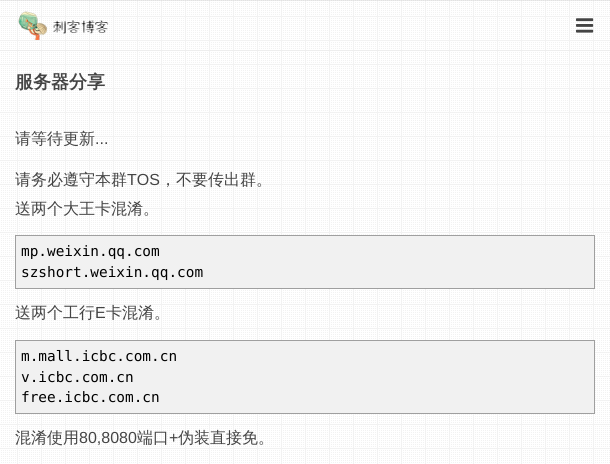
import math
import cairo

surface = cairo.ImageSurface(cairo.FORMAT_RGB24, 610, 464)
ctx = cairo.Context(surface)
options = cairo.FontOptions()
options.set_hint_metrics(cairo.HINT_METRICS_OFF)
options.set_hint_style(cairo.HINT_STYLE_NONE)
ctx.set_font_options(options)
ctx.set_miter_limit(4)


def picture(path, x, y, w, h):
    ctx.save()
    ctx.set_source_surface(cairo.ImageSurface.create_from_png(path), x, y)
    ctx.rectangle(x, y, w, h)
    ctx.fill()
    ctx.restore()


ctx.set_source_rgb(1, 1, 1)
ctx.paint()
picture("img1.png", 0, 0, 610, 464)
ctx.set_source_rgba(0.62, 0.62, 0.62, 0.2)
ctx.rectangle(0, 0, 610, 1)
ctx.fill()
ctx.set_source_rgb(0.929, 0.929, 0.929)
ctx.rectangle(0, 50, 610, 1)
ctx.fill()
picture("img2.png", 18, 11, 91, 29)
picture("img3.png", 576, 18, 18, 15)
ctx.select_font_face("WenQuanYi Zen Hei", cairo.FONT_SLANT_NORMAL, cairo.FONT_WEIGHT_BOLD)
ctx.set_font_size(18)
ctx.set_source_rgb(0.267, 0.267, 0.267)
ctx.move_to(15, 88)
ctx.show_text("服务器分享")
ctx.select_font_face("WenQuanYi Zen Hei Medium")
ctx.set_font_size(16)
ctx.move_to(15, 144)
ctx.show_text("请等待更新")
ctx.select_font_face("Liberation Sans")
ctx.move_to(95, 144)
ctx.show_text("...")
ctx.select_font_face("WenQuanYi Zen Hei Medium")
ctx.move_to(15, 185)
ctx.show_text("请务必遵守本群")
ctx.select_font_face("Liberation Sans")
ctx.move_to(127, 185)
ctx.show_text("TOS")
ctx.select_font_face("WenQuanYi Zen Hei Medium")
ctx.move_to(160, 185)
ctx.show_text("，不要传出群。")
ctx.move_to(15, 214)
ctx.show_text("送两个大王卡混淆。")
ctx.set_source_rgb(0.945, 0.945, 0.945)
ctx.rectangle(16, 236, 577, 52)
ctx.fill()
ctx.rectangle(15.5, 235.5, 579, 53)
ctx.set_source_rgb(0.624, 0.624, 0.624)
ctx.set_line_width(1)
ctx.stroke()
ctx.select_font_face("DejaVu Sans Mono")
ctx.set_font_size(14.4)
ctx.set_source_rgb(0, 0, 0)
ctx.move_to(21, 256)
ctx.show_text("mp.weixin.qq.com")
ctx.move_to(21, 277)
ctx.show_text("szshort.weixin.qq.com")
ctx.select_font_face("WenQuanYi Zen Hei Medium")
ctx.set_font_size(16)
ctx.set_source_rgb(0.267, 0.267, 0.267)
ctx.move_to(15, 318)
ctx.show_text("送两个工行")
ctx.select_font_face("Liberation Sans")
ctx.move_to(95, 318)
ctx.show_text("E")
ctx.select_font_face("WenQuanYi Zen Hei Medium")
ctx.move_to(106, 318)
ctx.show_text("卡混淆。")
ctx.set_source_rgb(0.945, 0.945, 0.945)
ctx.rectangle(16, 341, 577, 72)
ctx.fill()
ctx.rectangle(15.5, 340.5, 579, 73)
ctx.set_source_rgb(0.624, 0.624, 0.624)
ctx.stroke()
ctx.select_font_face("DejaVu Sans Mono")
ctx.set_font_size(14.4)
ctx.set_source_rgb(0, 0, 0)
ctx.move_to(21, 361)
ctx.show_text("m.mall.icbc.com.cn")
ctx.move_to(21, 382)
ctx.show_text("v.icbc.com.cn")
ctx.move_to(21, 402)
ctx.show_text("free.icbc.com.cn")
ctx.select_font_face("WenQuanYi Zen Hei Medium")
ctx.set_font_size(16)
ctx.set_source_rgb(0.267, 0.267, 0.267)
ctx.move_to(15, 443)
ctx.show_text("混淆使用")
ctx.select_font_face("Liberation Sans")
ctx.move_to(79, 443)
ctx.show_text("80,8080")
ctx.select_font_face("WenQuanYi Zen Hei Medium")
ctx.move_to(137, 443)
ctx.show_text("端口")
ctx.select_font_face("Liberation Sans")
ctx.move_to(169, 443)
ctx.show_text("+")
ctx.select_font_face("WenQuanYi Zen Hei Medium")
ctx.move_to(178, 443)
ctx.show_text("伪装直接免。")
surface.write_to_png("page.png")
